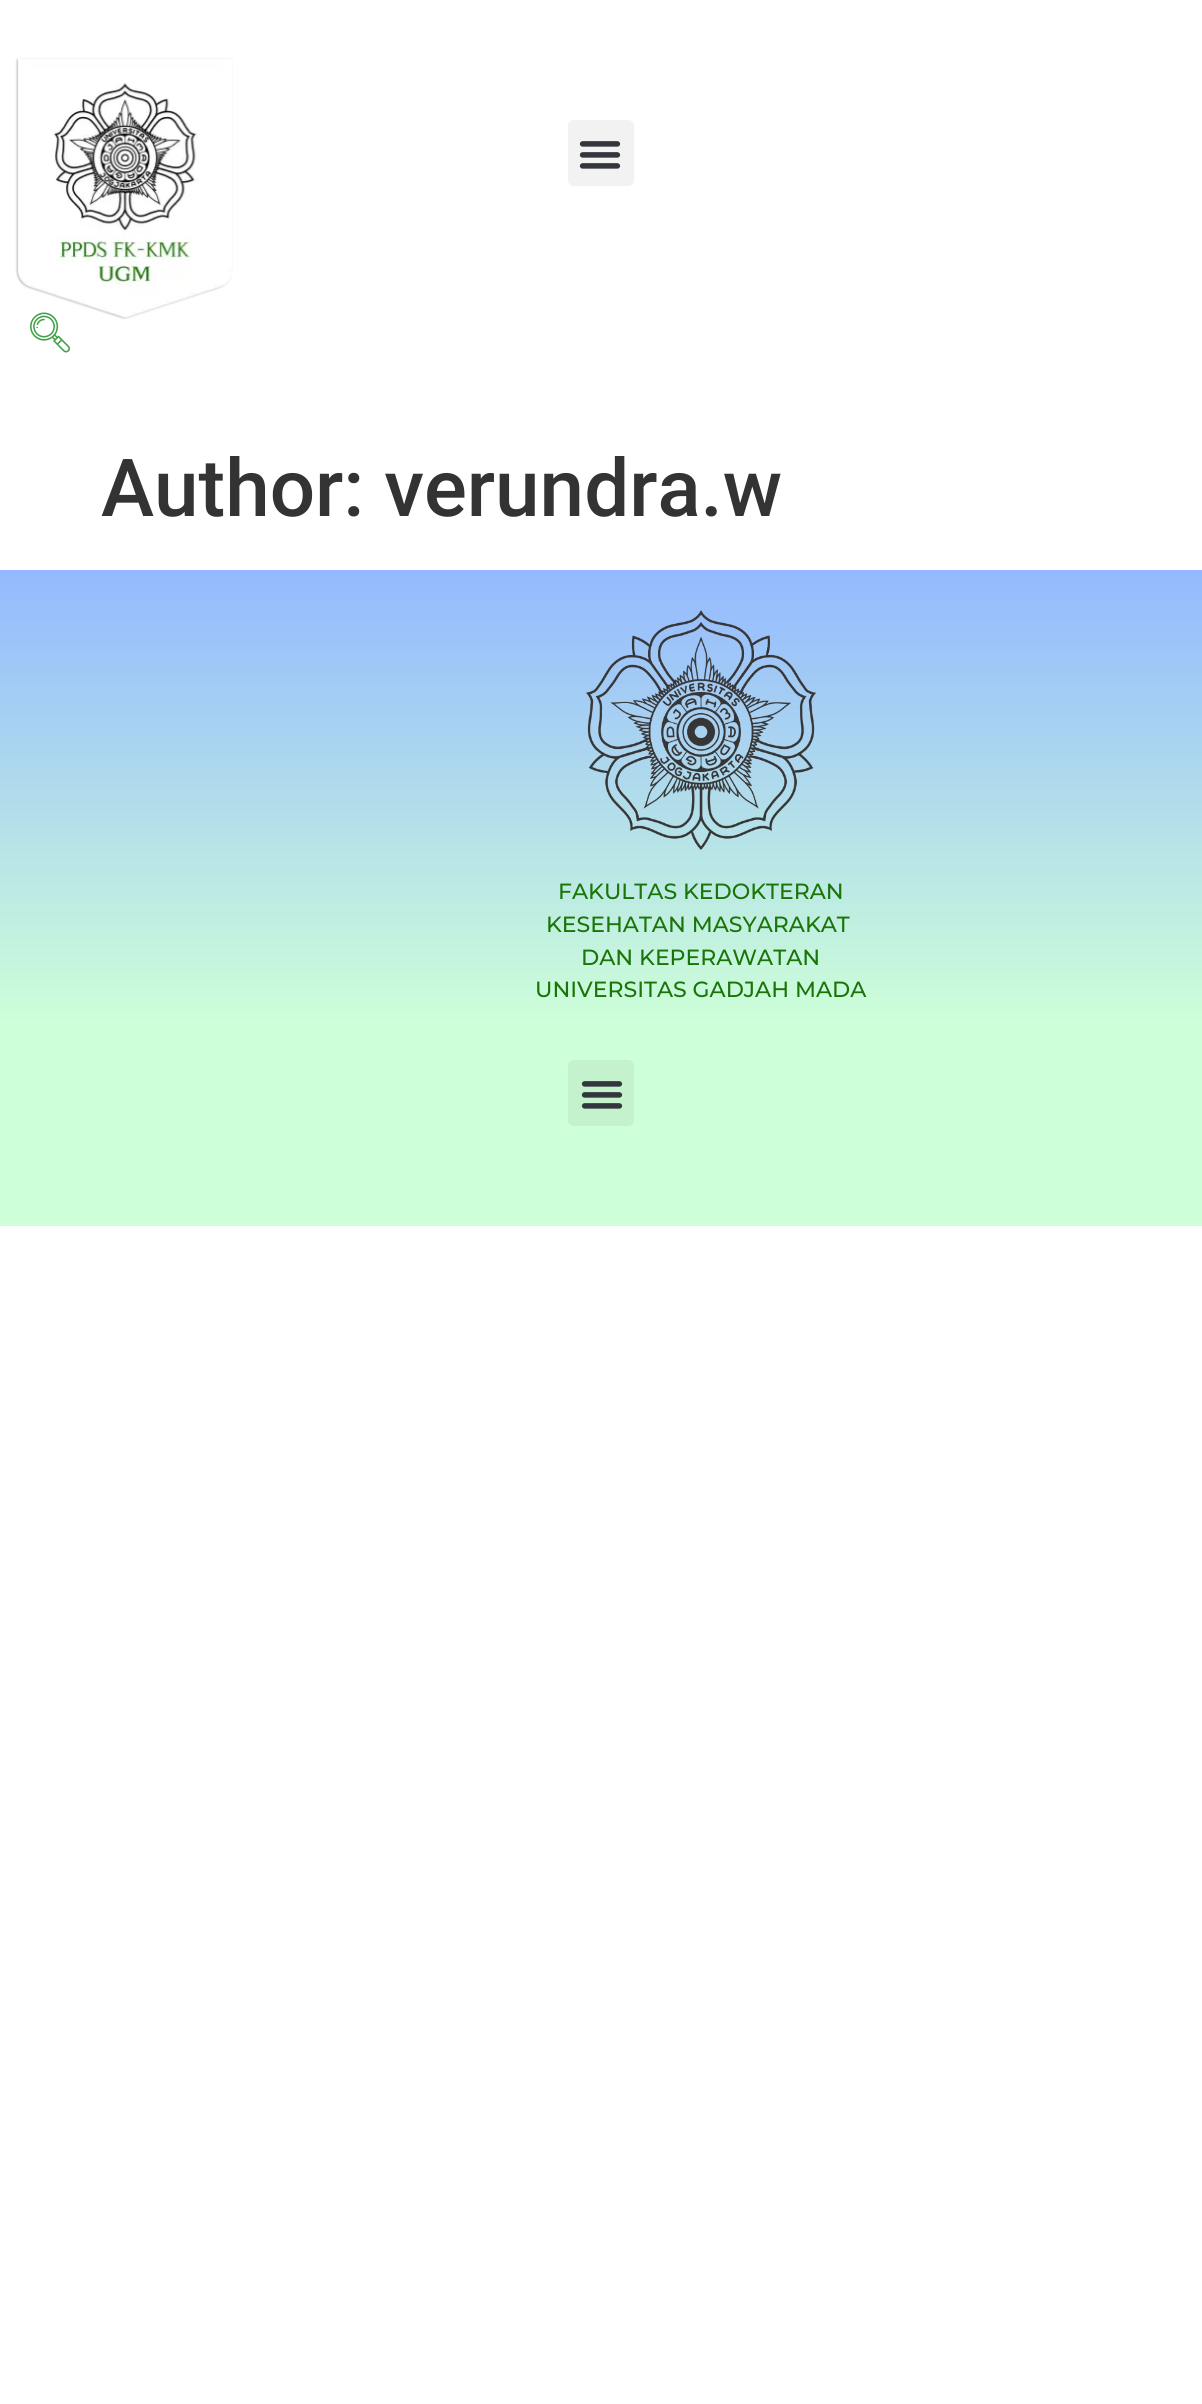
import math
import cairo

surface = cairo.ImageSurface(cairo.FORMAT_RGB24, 1202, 2404)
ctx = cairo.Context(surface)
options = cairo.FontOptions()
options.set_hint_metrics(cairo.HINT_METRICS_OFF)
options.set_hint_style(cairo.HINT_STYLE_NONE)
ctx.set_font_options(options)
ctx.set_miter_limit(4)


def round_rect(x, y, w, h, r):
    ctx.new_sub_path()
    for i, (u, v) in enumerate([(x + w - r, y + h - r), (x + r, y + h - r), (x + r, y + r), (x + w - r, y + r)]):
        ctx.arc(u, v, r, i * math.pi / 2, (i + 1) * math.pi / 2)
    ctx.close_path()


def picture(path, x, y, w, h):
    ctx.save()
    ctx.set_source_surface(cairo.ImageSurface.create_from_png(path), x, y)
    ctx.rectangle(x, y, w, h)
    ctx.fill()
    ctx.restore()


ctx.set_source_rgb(1, 1, 1)
ctx.paint()
picture("img1.png", 15, 58, 218, 262)
ctx.set_source_rgb(0.949, 0.949, 0.949)
round_rect(568, 120, 66, 66, 6)
ctx.fill()
picture("img2.png", 579, 141, 42, 28)
picture("img3.png", 30, 312, 40, 41)
ctx.select_font_face("Roboto Medium")
ctx.set_font_size(80)
ctx.set_source_rgb(0.2, 0.2, 0.2)
ctx.move_to(101, 516)
ctx.show_text("Author: verundra.w")
gradient = cairo.LinearGradient(601, 570, 601, 1226)
gradient.add_color_stop_rgba(0, 0.58, 0.725, 1, 1)
gradient.add_color_stop_rgba(0.69, 0.804, 1, 0.847, 1)
ctx.set_source(gradient)
ctx.rectangle(0, 570, 1202, 656)
ctx.fill()
picture("img4.png", 586, 610, 230, 240)
ctx.select_font_face("Montserrat Medium")
ctx.set_font_size(22)
ctx.set_source_rgb(0.102, 0.455, 0.035)
ctx.move_to(558, 899)
ctx.show_text("FAKULTAS KEDOKTERAN")
ctx.move_to(546, 932)
ctx.show_text("KESEHATAN MASYARAKAT")
ctx.move_to(581, 965)
ctx.show_text("DAN KEPERAWATAN")
ctx.move_to(535, 997)
ctx.show_text("UNIVERSITAS GADJAH MADA")
ctx.set_source_rgb(0.765, 0.949, 0.804)
round_rect(568, 1060, 66, 66, 6)
ctx.fill()
picture("img5.png", 581, 1081, 42, 28)
surface.write_to_png("page.png")
